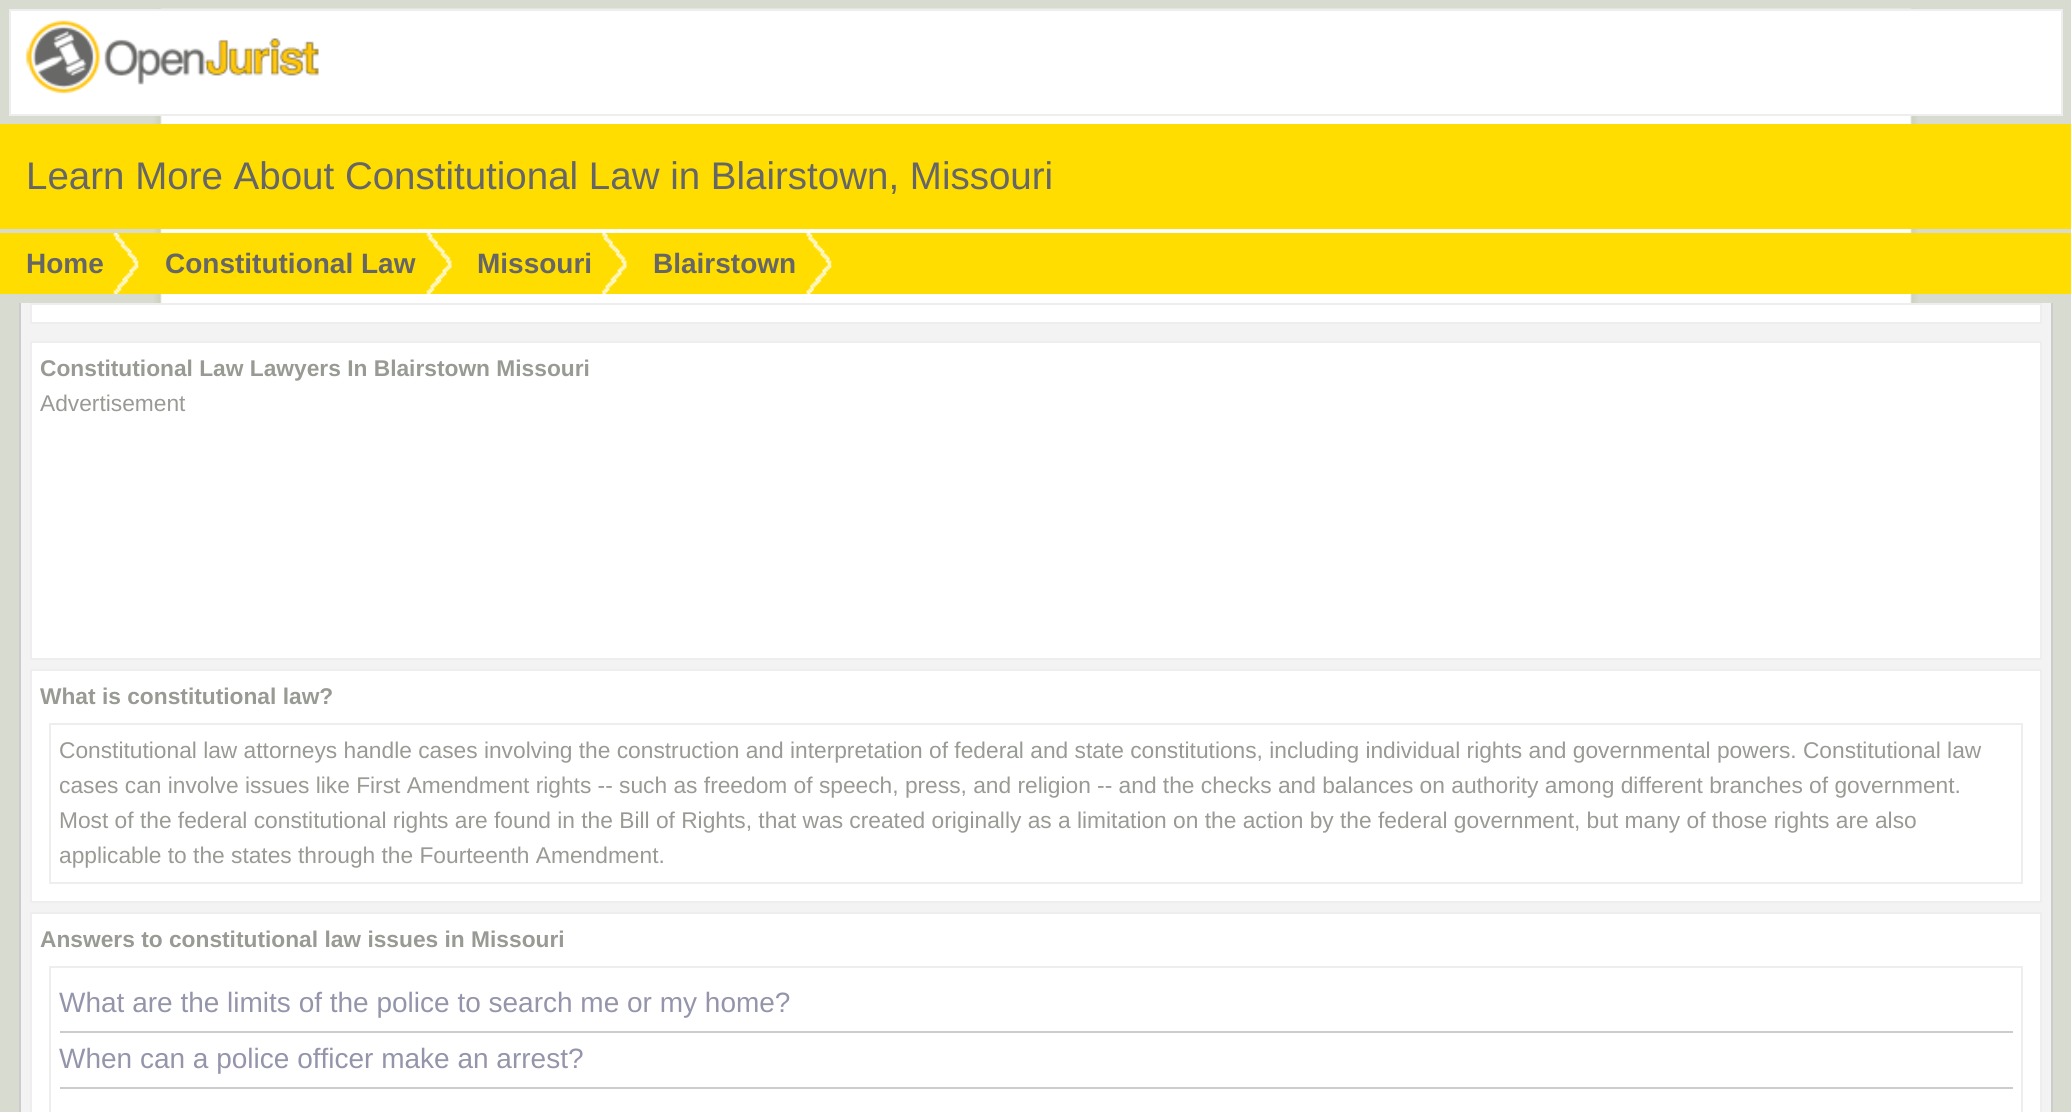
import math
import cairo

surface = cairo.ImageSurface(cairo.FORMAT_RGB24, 2071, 1112)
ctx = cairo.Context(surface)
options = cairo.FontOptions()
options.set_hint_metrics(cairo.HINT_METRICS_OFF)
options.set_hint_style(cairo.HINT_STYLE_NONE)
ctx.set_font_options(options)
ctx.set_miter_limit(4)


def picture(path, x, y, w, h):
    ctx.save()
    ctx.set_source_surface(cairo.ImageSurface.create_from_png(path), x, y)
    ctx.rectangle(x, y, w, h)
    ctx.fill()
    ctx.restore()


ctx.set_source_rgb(0.847, 0.863, 0.816)
ctx.paint()
picture("img1.png", 154, 8, 1764, 295)
ctx.set_source_rgb(1, 1, 1)
ctx.rectangle(10, 10, 2052, 105)
ctx.fill_preserve()
ctx.set_source_rgb(0.933, 0.933, 0.933)
ctx.stroke()
picture("img2.png", 25, 20, 294, 74)
ctx.set_source_rgb(1, 0.867, 0)
ctx.rectangle(0, 124, 2071, 105)
ctx.fill()
ctx.select_font_face("Liberation Sans")
ctx.set_font_size(38.5)
ctx.set_source_rgb(0.4, 0.4, 0.4)
ctx.move_to(26, 189)
ctx.show_text("Learn More About Constitutional Law in Blairstown, Missouri")
ctx.set_source_rgb(1, 0.867, 0)
ctx.rectangle(0, 233, 2071, 61)
ctx.fill()
picture("img3.png", 113, 233, 26, 61)
ctx.select_font_face("Liberation Sans", cairo.FONT_SLANT_NORMAL, cairo.FONT_WEIGHT_BOLD)
ctx.set_font_size(28)
ctx.set_source_rgb(0.4, 0.4, 0.4)
ctx.move_to(26, 273)
ctx.show_text("Home")
picture("img4.png", 426, 233, 26, 61)
ctx.move_to(165, 273)
ctx.show_text("Constitutional Law")
picture("img5.png", 601, 233, 26, 61)
ctx.move_to(477, 273)
ctx.show_text("Missouri")
picture("img6.png", 806, 233, 26, 61)
ctx.move_to(653, 273)
ctx.show_text("Blairstown")
ctx.set_source_rgb(0.953, 0.953, 0.953)
ctx.rectangle(21, 303, 2030, 809)
ctx.fill()
ctx.set_source_rgb(0.8, 0.8, 0.8)
ctx.rectangle(2051, 303, 2, 809)
ctx.fill()
ctx.rectangle(19, 303, 2, 809)
ctx.fill()
ctx.set_source_rgb(1, 1, 1)
ctx.rectangle(31, 304, 2010, 19)
ctx.fill_preserve()
ctx.set_source_rgb(0.933, 0.933, 0.933)
ctx.stroke()
ctx.set_source_rgb(1, 1, 1)
ctx.rectangle(31, 342, 2010, 317)
ctx.fill_preserve()
ctx.set_source_rgb(0.933, 0.933, 0.933)
ctx.stroke()
ctx.set_font_size(22.75)
ctx.set_source_rgb(0.596, 0.604, 0.58)
ctx.move_to(40, 376)
ctx.show_text("Constitutional Law Lawyers In Blairstown Missouri")
ctx.select_font_face("Liberation Sans")
ctx.move_to(40, 411)
ctx.show_text("Advertisement")
ctx.set_source_rgb(1, 1, 1)
ctx.rectangle(31, 670, 2010, 232)
ctx.fill_preserve()
ctx.set_source_rgb(0.933, 0.933, 0.933)
ctx.stroke()
ctx.select_font_face("Liberation Sans", cairo.FONT_SLANT_NORMAL, cairo.FONT_WEIGHT_BOLD)
ctx.set_source_rgb(0.596, 0.604, 0.58)
ctx.move_to(40, 704)
ctx.show_text("What is constitutional law?")
ctx.rectangle(50, 724, 1972, 159)
ctx.set_source_rgb(0.933, 0.933, 0.933)
ctx.stroke()
ctx.select_font_face("Liberation Sans")
ctx.set_source_rgb(0.596, 0.604, 0.58)
ctx.move_to(59, 758)
ctx.show_text("Constitutional law attorneys handle cases involving the construction and interpretation of federal and state constitutions, including individual rights and governmental powers. Constitutional law")
ctx.move_to(59, 793)
ctx.show_text("cases can involve issues like First Amendment rights -- such as freedom of speech, press, and religion -- and the checks and balances on authority among different branches of government.")
ctx.move_to(59, 828)
ctx.show_text("Most of the federal constitutional rights are found in the Bill of Rights, that was created originally as a limitation on the action by the federal government, but many of those rights are also")
ctx.move_to(59, 863)
ctx.show_text("applicable to the states through the Fourteenth Amendment.")
ctx.set_source_rgb(1, 1, 1)
ctx.rectangle(31, 913, 2010, 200)
ctx.fill_preserve()
ctx.set_source_rgb(0.933, 0.933, 0.933)
ctx.stroke()
ctx.select_font_face("Liberation Sans", cairo.FONT_SLANT_NORMAL, cairo.FONT_WEIGHT_BOLD)
ctx.set_source_rgb(0.596, 0.604, 0.58)
ctx.move_to(40, 947)
ctx.show_text("Answers to constitutional law issues in Missouri")
ctx.rectangle(50, 967, 1972, 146)
ctx.set_source_rgb(0.933, 0.933, 0.933)
ctx.stroke()
ctx.set_source_rgb(0.8, 0.8, 0.8)
ctx.rectangle(60, 1031, 1953, 2)
ctx.fill()
ctx.select_font_face("Liberation Sans")
ctx.set_font_size(28)
ctx.set_source_rgb(0.58, 0.584, 0.671)
ctx.move_to(59, 1012)
ctx.show_text("What are the limits of the police to search me or my home?")
ctx.set_source_rgb(0.8, 0.8, 0.8)
ctx.rectangle(60, 1087, 1953, 2)
ctx.fill()
ctx.set_source_rgb(0.58, 0.584, 0.671)
ctx.move_to(59, 1068)
ctx.show_text("When can a police officer make an arrest?")
surface.write_to_png("page.png")
